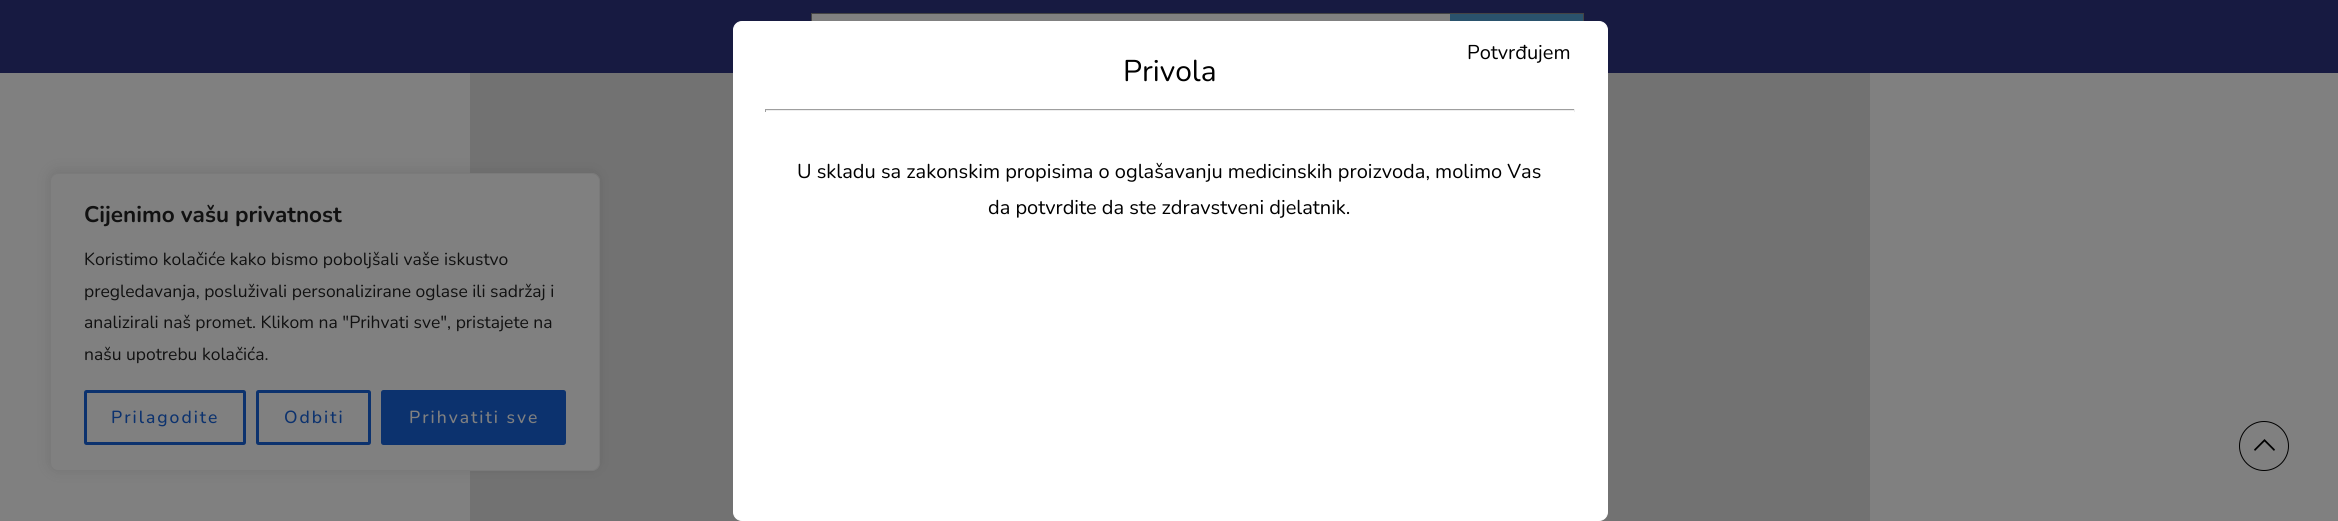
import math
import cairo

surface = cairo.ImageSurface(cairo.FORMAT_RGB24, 2338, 521)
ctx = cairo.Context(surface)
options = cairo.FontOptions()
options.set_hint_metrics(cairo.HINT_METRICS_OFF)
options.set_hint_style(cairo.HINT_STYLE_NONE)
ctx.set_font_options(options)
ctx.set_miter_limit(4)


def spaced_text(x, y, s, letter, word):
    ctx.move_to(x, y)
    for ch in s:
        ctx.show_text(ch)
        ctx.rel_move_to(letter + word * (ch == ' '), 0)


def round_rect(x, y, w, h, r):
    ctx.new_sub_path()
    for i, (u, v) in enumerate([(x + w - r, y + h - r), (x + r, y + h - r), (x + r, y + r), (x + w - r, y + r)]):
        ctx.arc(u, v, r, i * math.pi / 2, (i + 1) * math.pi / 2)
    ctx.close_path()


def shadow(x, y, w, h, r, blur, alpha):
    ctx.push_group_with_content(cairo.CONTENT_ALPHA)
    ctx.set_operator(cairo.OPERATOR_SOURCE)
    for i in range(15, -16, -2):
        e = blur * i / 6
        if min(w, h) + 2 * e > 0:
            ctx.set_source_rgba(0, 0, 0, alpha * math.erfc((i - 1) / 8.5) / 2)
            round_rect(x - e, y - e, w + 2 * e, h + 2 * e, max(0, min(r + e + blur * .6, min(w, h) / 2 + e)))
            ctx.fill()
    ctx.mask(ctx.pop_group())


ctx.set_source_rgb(0.502, 0.502, 0.502)
ctx.paint()
ctx.set_source_rgb(0.09, 0.102, 0.255)
ctx.rectangle(0, 0, 2338, 73)
ctx.fill()
ctx.set_source_rgb(0.502, 0.502, 0.502)
ctx.rectangle(812, 14, 638, 7)
ctx.fill()
ctx.rectangle(811.5, 13.5, 772, 46)
ctx.set_source_rgb(0.267, 0.267, 0.267)
ctx.set_line_width(1)
ctx.stroke()
ctx.set_source_rgb(0.165, 0.322, 0.424)
ctx.rectangle(1450, 14, 133, 7)
ctx.fill()
ctx.set_source_rgb(0.447, 0.447, 0.447)
ctx.rectangle(470, 73, 1400, 448)
ctx.fill()
ctx.set_source_rgb(1, 1, 1)
round_rect(733.5, 21.5, 874, 499, 8.5)
ctx.fill_preserve()
ctx.stroke()
ctx.select_font_face("Nunito")
ctx.set_font_size(20)
ctx.set_source_rgb(0, 0, 0)
ctx.move_to(1467, 59)
ctx.show_text("Potvrđujem")
ctx.set_font_size(30)
ctx.move_to(1123, 81)
ctx.show_text("Privola")
ctx.set_source_rgb(0.624, 0.624, 0.624)
ctx.rectangle(765, 109, 810, 1)
ctx.fill()
ctx.set_source_rgb(0.933, 0.933, 0.933)
ctx.rectangle(1574, 109, 1, 3)
ctx.fill()
ctx.rectangle(765, 110, 810, 1)
ctx.fill()
ctx.set_source_rgb(0.624, 0.624, 0.624)
ctx.rectangle(765, 109, 1, 3)
ctx.fill()
ctx.set_font_size(20)
ctx.set_source_rgb(0, 0, 0)
ctx.move_to(797, 178)
ctx.show_text("U skladu sa zakonskim propisima o oglašavanju medicinskih proizvoda, molimo Vas")
ctx.move_to(988, 214)
ctx.show_text("da potvrdite da ste zdravstveni djelatnik.")
ctx.set_source_rgb(0.337, 0.337, 0.337)
shadow(50, 171, 550, 299, 8, 6, 0.3)
ctx.set_source_rgb(0.502, 0.502, 0.502)
round_rect(50.5, 173.5, 549, 297, 7.5)
ctx.fill_preserve()
ctx.set_source_rgb(0.478, 0.478, 0.478)
ctx.stroke()
ctx.select_font_face("Nunito", cairo.FONT_SLANT_NORMAL, cairo.FONT_WEIGHT_BOLD)
ctx.set_font_size(22.5)
ctx.set_source_rgb(0.067, 0.067, 0.067)
ctx.move_to(84, 222)
ctx.show_text("Cijenimo vašu privatnost")
ctx.select_font_face("Nunito")
ctx.set_font_size(17.5)
ctx.move_to(84, 265)
ctx.show_text("Koristimo kolačiće kako bismo poboljšali vaše iskustvo")
ctx.move_to(84, 297)
ctx.show_text("pregledavanja, posluživali personalizirane oglase ili sadržaj i")
ctx.move_to(84, 328)
ctx.show_text("analizirali naš promet. Klikom na \"Prihvati sve\", pristajete na")
ctx.move_to(84, 360)
ctx.show_text("našu upotrebu kolačića.")
round_rect(85.5, 391.5, 159, 52, 1)
ctx.set_source_rgb(0.047, 0.196, 0.431)
ctx.set_line_width(3)
ctx.stroke()
ctx.select_font_face("Nunito Medium")
spaced_text(111, 423, "Prilagodite", 2, 0)
round_rect(257.5, 391.5, 112, 52, 1)
ctx.stroke()
spaced_text(284, 423, "Odbiti", 2, 0)
round_rect(382.5, 391.5, 182, 52, 1)
ctx.fill_preserve()
ctx.stroke()
ctx.set_source_rgb(0.502, 0.502, 0.502)
spaced_text(409, 423, "Prihvatiti sve", 2, 0)
ctx.new_path()
ctx.arc(2264, 446, 24.5, 0, 2 * math.pi)
ctx.set_source_rgb(0, 0, 0)
ctx.set_line_width(1)
ctx.stroke()
ctx.new_path()
ctx.move_to(2254, 449.5)
ctx.line_to(2264.5, 439)
ctx.line_to(2275, 449.5)
ctx.line_to(2274, 451)
ctx.line_to(2264.5, 441.5)
ctx.line_to(2255, 451)
ctx.close_path()
ctx.fill()
surface.write_to_png("page.png")
